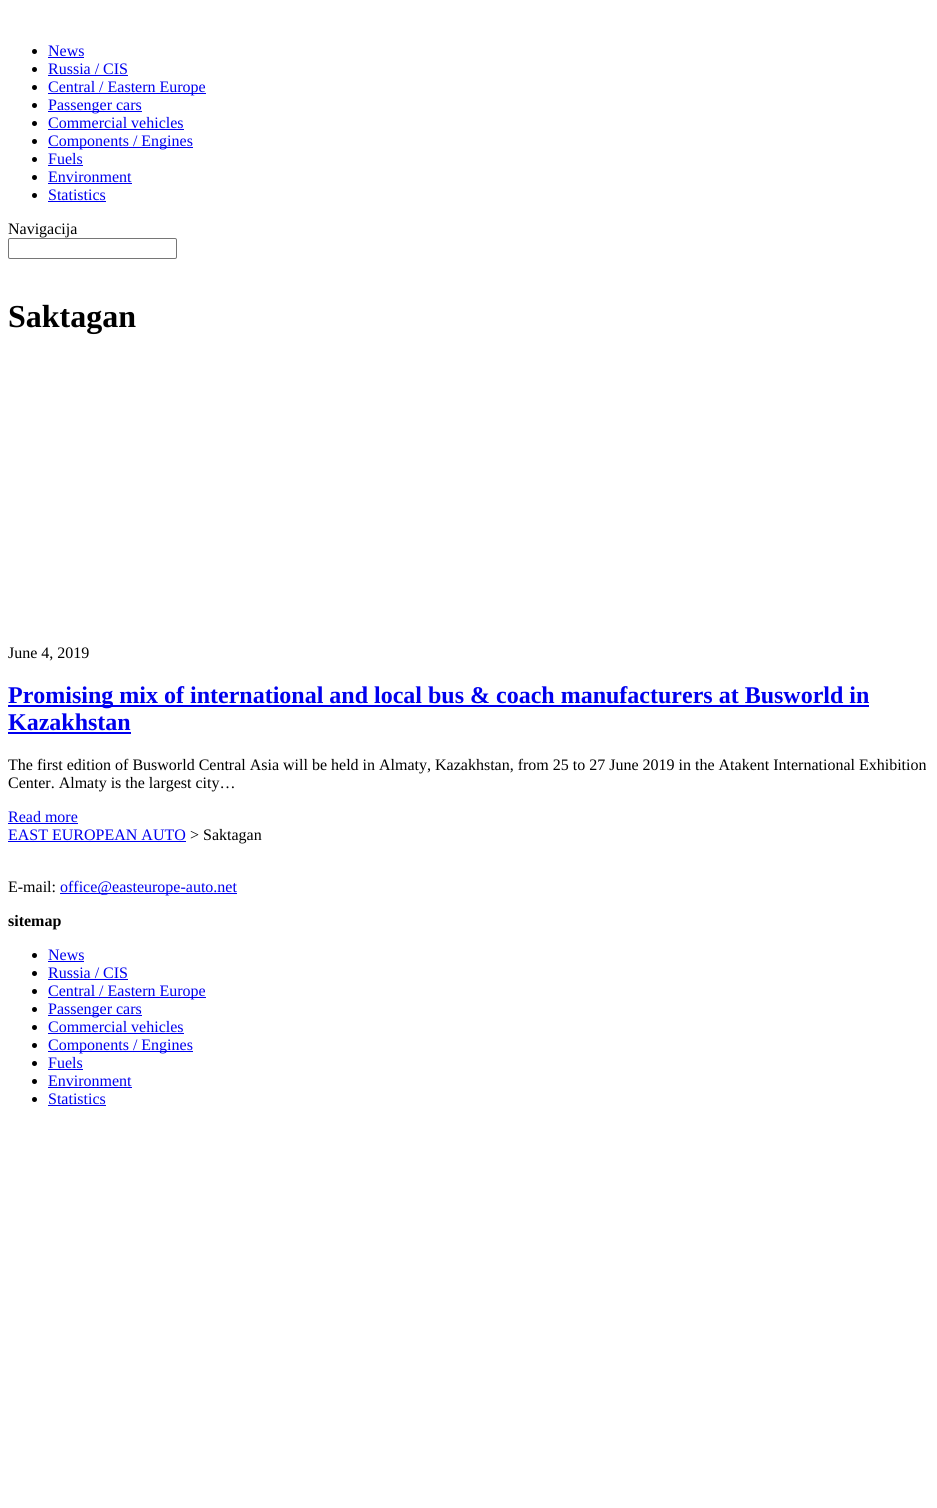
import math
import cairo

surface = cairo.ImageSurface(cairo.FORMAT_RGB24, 937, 1508)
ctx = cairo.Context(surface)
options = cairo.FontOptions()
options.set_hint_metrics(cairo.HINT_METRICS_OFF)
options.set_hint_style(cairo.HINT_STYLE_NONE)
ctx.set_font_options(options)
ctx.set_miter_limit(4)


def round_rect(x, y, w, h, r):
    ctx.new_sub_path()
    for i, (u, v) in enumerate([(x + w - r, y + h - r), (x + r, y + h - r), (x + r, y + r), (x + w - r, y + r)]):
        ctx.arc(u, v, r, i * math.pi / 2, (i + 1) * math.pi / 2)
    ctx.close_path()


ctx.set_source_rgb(1, 1, 1)
ctx.paint()
ctx.set_source_rgb(0, 0, 0)
ctx.arc(34.5, 51.5, 2.5, 0, 2 * math.pi)
ctx.fill()
ctx.select_font_face("Liberation Serif")
ctx.set_font_size(16)
ctx.set_source_rgb(0, 0, 0.933)
ctx.move_to(48, 56)
ctx.show_text("News")
ctx.rectangle(48, 57, 36, 1)
ctx.fill()
ctx.set_source_rgb(0, 0, 0)
ctx.arc(34.5, 69.5, 2.5, 0, 2 * math.pi)
ctx.fill()
ctx.set_source_rgb(0, 0, 0.933)
ctx.move_to(48, 74)
ctx.show_text("Russia / CIS")
ctx.rectangle(48, 75, 80, 1)
ctx.fill()
ctx.set_source_rgb(0, 0, 0)
ctx.arc(34.5, 87.5, 2.5, 0, 2 * math.pi)
ctx.fill()
ctx.set_source_rgb(0, 0, 0.933)
ctx.rectangle(48, 93, 158, 1)
ctx.fill()
ctx.move_to(48, 92)
ctx.show_text("Central / Eastern Europe")
ctx.set_source_rgb(0, 0, 0)
ctx.new_path()
ctx.arc(34.5, 105.5, 2.5, 0, 2 * math.pi)
ctx.fill()
ctx.set_source_rgb(0, 0, 0.933)
ctx.rectangle(48, 111, 94, 1)
ctx.fill()
ctx.move_to(48, 110)
ctx.show_text("Passenger cars")
ctx.set_source_rgb(0, 0, 0)
ctx.new_path()
ctx.arc(34.5, 123.5, 2.5, 0, 2 * math.pi)
ctx.fill()
ctx.set_source_rgb(0, 0, 0.933)
ctx.move_to(48, 128)
ctx.show_text("Commercial vehicles")
ctx.rectangle(48, 129, 136, 1)
ctx.fill()
ctx.set_source_rgb(0, 0, 0)
ctx.arc(34.5, 141.5, 2.5, 0, 2 * math.pi)
ctx.fill()
ctx.set_source_rgb(0, 0, 0.933)
ctx.rectangle(48, 147, 145, 1)
ctx.fill()
ctx.move_to(48, 146)
ctx.show_text("Components / Engines")
ctx.set_source_rgb(0, 0, 0)
ctx.new_path()
ctx.arc(34.5, 159.5, 2.5, 0, 2 * math.pi)
ctx.fill()
ctx.set_source_rgb(0, 0, 0.933)
ctx.move_to(48, 164)
ctx.show_text("Fuels")
ctx.rectangle(48, 165, 35, 1)
ctx.fill()
ctx.set_source_rgb(0, 0, 0)
ctx.arc(34.5, 177.5, 2.5, 0, 2 * math.pi)
ctx.fill()
ctx.set_source_rgb(0, 0, 0.933)
ctx.move_to(48, 182)
ctx.show_text("Environment")
ctx.rectangle(48, 183, 84, 1)
ctx.fill()
ctx.set_source_rgb(0, 0, 0)
ctx.arc(34.5, 195.5, 2.5, 0, 2 * math.pi)
ctx.fill()
ctx.set_source_rgb(0, 0, 0.933)
ctx.move_to(48, 200)
ctx.show_text("Statistics")
ctx.rectangle(48, 201, 58, 1)
ctx.fill()
ctx.set_source_rgb(0, 0, 0)
ctx.move_to(8, 234)
ctx.show_text("Navigacija")
round_rect(8.5, 238.5, 168, 20, 1.5)
ctx.set_source_rgb(0.463, 0.463, 0.463)
ctx.set_line_width(1)
ctx.stroke()
ctx.select_font_face("Liberation Serif", cairo.FONT_SLANT_NORMAL, cairo.FONT_WEIGHT_BOLD)
ctx.set_font_size(32)
ctx.set_source_rgb(0, 0, 0)
ctx.move_to(8, 327)
ctx.show_text("Saktagan")
ctx.select_font_face("Liberation Serif")
ctx.set_font_size(16)
ctx.move_to(8, 658)
ctx.show_text("June 4, 2019")
ctx.set_source_rgb(0, 0, 0.933)
ctx.rectangle(8, 705, 861, 2)
ctx.fill()
ctx.select_font_face("Liberation Serif", cairo.FONT_SLANT_NORMAL, cairo.FONT_WEIGHT_BOLD)
ctx.set_font_size(24)
ctx.move_to(8, 703)
ctx.show_text("Promising mix of international and local bus & coach manufacturers at Busworld in")
ctx.move_to(8, 730)
ctx.show_text("Kazakhstan")
ctx.rectangle(8, 732, 123, 2)
ctx.fill()
ctx.select_font_face("Liberation Serif")
ctx.set_font_size(16)
ctx.set_source_rgb(0, 0, 0)
ctx.move_to(8, 770)
ctx.show_text("The first edition of Busworld Central Asia will be held in Almaty, Kazakhstan, from 25 to 27 June 2019 in the Atakent International Exhibition")
ctx.move_to(8, 788)
ctx.show_text("Center. Almaty is the largest city…")
ctx.set_source_rgb(0, 0, 0.933)
ctx.move_to(8, 822)
ctx.show_text("Read more")
ctx.rectangle(8, 823, 70, 1)
ctx.fill()
ctx.move_to(8, 840)
ctx.show_text("EAST EUROPEAN AUTO")
ctx.rectangle(8, 841, 178, 1)
ctx.fill()
ctx.set_source_rgb(0, 0, 0)
ctx.move_to(190, 840)
ctx.show_text("> Saktagan")
ctx.move_to(8, 892)
ctx.show_text("E-mail:")
ctx.set_source_rgb(0, 0, 0.933)
ctx.rectangle(60, 893, 177, 1)
ctx.fill()
ctx.move_to(60, 892)
ctx.show_text("office@easteurope-auto.net")
ctx.select_font_face("Liberation Serif", cairo.FONT_SLANT_NORMAL, cairo.FONT_WEIGHT_BOLD)
ctx.set_source_rgb(0, 0, 0)
ctx.move_to(8, 926)
ctx.show_text("sitemap")
ctx.new_path()
ctx.arc(34.5, 955.5, 2.5, 0, 2 * math.pi)
ctx.fill()
ctx.select_font_face("Liberation Serif")
ctx.set_source_rgb(0, 0, 0.933)
ctx.move_to(48, 960)
ctx.show_text("News")
ctx.rectangle(48, 961, 36, 1)
ctx.fill()
ctx.set_source_rgb(0, 0, 0)
ctx.arc(34.5, 973.5, 2.5, 0, 2 * math.pi)
ctx.fill()
ctx.set_source_rgb(0, 0, 0.933)
ctx.move_to(48, 978)
ctx.show_text("Russia / CIS")
ctx.rectangle(48, 979, 80, 1)
ctx.fill()
ctx.set_source_rgb(0, 0, 0)
ctx.arc(34.5, 991.5, 2.5, 0, 2 * math.pi)
ctx.fill()
ctx.set_source_rgb(0, 0, 0.933)
ctx.rectangle(48, 997, 158, 1)
ctx.fill()
ctx.move_to(48, 996)
ctx.show_text("Central / Eastern Europe")
ctx.set_source_rgb(0, 0, 0)
ctx.new_path()
ctx.arc(34.5, 1009.5, 2.5, 0, 2 * math.pi)
ctx.fill()
ctx.set_source_rgb(0, 0, 0.933)
ctx.rectangle(48, 1015, 94, 1)
ctx.fill()
ctx.move_to(48, 1014)
ctx.show_text("Passenger cars")
ctx.set_source_rgb(0, 0, 0)
ctx.new_path()
ctx.arc(34.5, 1027.5, 2.5, 0, 2 * math.pi)
ctx.fill()
ctx.set_source_rgb(0, 0, 0.933)
ctx.move_to(48, 1032)
ctx.show_text("Commercial vehicles")
ctx.rectangle(48, 1033, 136, 1)
ctx.fill()
ctx.set_source_rgb(0, 0, 0)
ctx.arc(34.5, 1045.5, 2.5, 0, 2 * math.pi)
ctx.fill()
ctx.set_source_rgb(0, 0, 0.933)
ctx.rectangle(48, 1051, 145, 1)
ctx.fill()
ctx.move_to(48, 1050)
ctx.show_text("Components / Engines")
ctx.set_source_rgb(0, 0, 0)
ctx.new_path()
ctx.arc(34.5, 1063.5, 2.5, 0, 2 * math.pi)
ctx.fill()
ctx.set_source_rgb(0, 0, 0.933)
ctx.move_to(48, 1068)
ctx.show_text("Fuels")
ctx.rectangle(48, 1069, 35, 1)
ctx.fill()
ctx.set_source_rgb(0, 0, 0)
ctx.arc(34.5, 1081.5, 2.5, 0, 2 * math.pi)
ctx.fill()
ctx.set_source_rgb(0, 0, 0.933)
ctx.move_to(48, 1086)
ctx.show_text("Environment")
ctx.rectangle(48, 1087, 84, 1)
ctx.fill()
ctx.set_source_rgb(0, 0, 0)
ctx.arc(34.5, 1099.5, 2.5, 0, 2 * math.pi)
ctx.fill()
ctx.set_source_rgb(0, 0, 0.933)
ctx.move_to(48, 1104)
ctx.show_text("Statistics")
ctx.rectangle(48, 1105, 58, 1)
ctx.fill()
surface.write_to_png("page.png")
